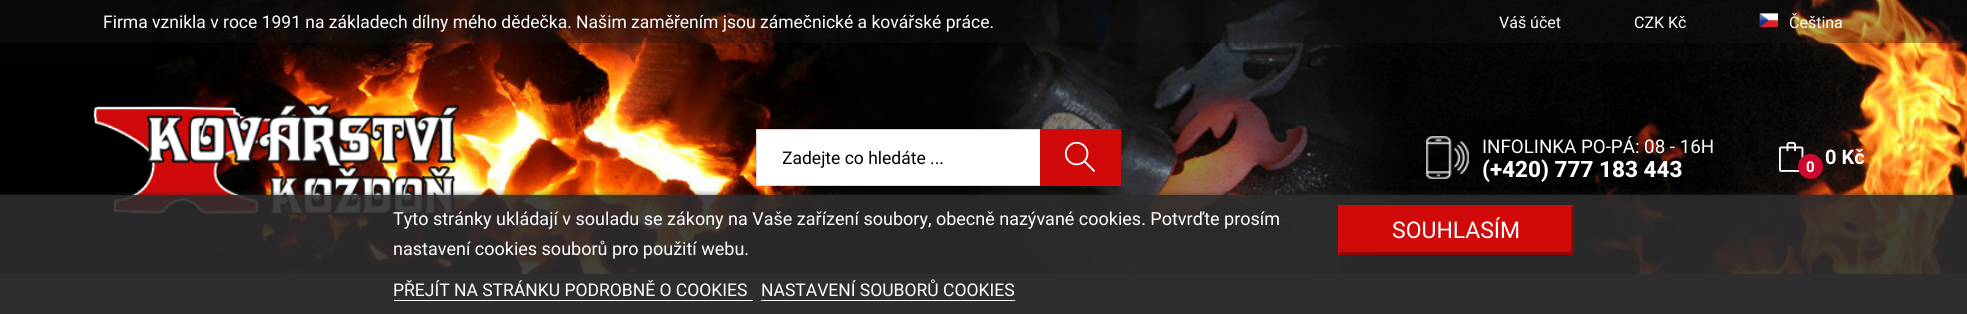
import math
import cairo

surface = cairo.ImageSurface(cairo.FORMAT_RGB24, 1967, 314)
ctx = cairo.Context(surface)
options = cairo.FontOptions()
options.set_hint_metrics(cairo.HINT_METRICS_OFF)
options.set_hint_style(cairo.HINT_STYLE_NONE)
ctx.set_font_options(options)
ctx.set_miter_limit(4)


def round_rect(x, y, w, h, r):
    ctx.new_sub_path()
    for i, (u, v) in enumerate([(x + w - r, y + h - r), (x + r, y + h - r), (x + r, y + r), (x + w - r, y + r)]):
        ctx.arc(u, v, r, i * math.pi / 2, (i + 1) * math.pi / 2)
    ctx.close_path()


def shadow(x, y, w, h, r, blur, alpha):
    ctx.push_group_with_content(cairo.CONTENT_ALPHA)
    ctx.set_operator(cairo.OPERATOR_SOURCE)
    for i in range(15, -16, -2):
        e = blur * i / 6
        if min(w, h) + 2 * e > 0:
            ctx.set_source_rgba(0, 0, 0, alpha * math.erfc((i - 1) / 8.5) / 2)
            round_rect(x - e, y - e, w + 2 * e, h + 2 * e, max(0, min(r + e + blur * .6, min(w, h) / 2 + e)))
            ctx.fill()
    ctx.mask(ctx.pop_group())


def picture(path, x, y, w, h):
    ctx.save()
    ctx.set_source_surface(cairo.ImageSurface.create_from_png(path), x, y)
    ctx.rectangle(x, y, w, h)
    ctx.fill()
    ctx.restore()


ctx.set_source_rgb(0.239, 0.239, 0.239)
ctx.paint()
picture("img1.png", 0, 0, 1967, 43)
ctx.select_font_face("Roboto")
ctx.set_font_size(17.5)
ctx.set_source_rgb(1, 1, 1)
ctx.move_to(103, 28)
ctx.show_text("Firma vznikla v roce 1991 na základech dílny mého dědečka. Našim zaměřením jsou zámečnické a kovářské práce.")
ctx.set_font_size(16)
ctx.move_to(1499, 28)
ctx.show_text("Váš účet")
ctx.move_to(1634, 28)
ctx.show_text("CZK Kč")
picture("img2.png", 1759, 13, 19, 14)
ctx.move_to(1789, 28)
ctx.show_text("Čeština")
picture("img3.png", 0, 43, 1967, 231)
picture("img4.png", 93, 103, 367, 113)
ctx.rectangle(757, 130, 283, 55)
ctx.fill()
ctx.rectangle(756.5, 129.5, 364, 56)
ctx.set_source_rgb(0.839, 0.839, 0.839)
ctx.set_line_width(1)
ctx.stroke()
ctx.save()
ctx.rectangle(783, 148, 250, 20)
ctx.clip()
ctx.set_font_size(17.5)
ctx.set_source_rgb(0, 0, 0)
ctx.move_to(782, 164)
ctx.show_text("Zadejte co hledáte ...")
ctx.restore()
ctx.set_source_rgb(0.816, 0.039, 0.039)
ctx.rectangle(1040, 129, 81, 57)
ctx.fill()
picture("img5.png", 1064, 141, 31, 31)
picture("img6.png", 1426, 136, 43, 43)
ctx.set_font_size(18.75)
ctx.set_source_rgb(1, 1, 1)
ctx.move_to(1482, 153)
ctx.show_text("INFOLINKA PO-PÁ: 08 - 16H")
ctx.select_font_face("Roboto ExtraBold")
ctx.set_font_size(22.5)
ctx.move_to(1482, 177)
ctx.show_text("(+420) 777 183 443")
picture("img7.png", 1779, 141, 25, 31)
ctx.select_font_face("Roboto", cairo.FONT_SLANT_NORMAL, cairo.FONT_WEIGHT_BOLD)
ctx.set_font_size(20)
ctx.move_to(1825, 164)
ctx.show_text("0 Kč")
ctx.set_source_rgb(0.804, 0.039, 0.176)
ctx.new_path()
ctx.arc(1810.5, 166.5, 12.5, 0, 2 * math.pi)
ctx.fill()
ctx.set_font_size(15)
ctx.set_source_rgb(1, 1, 1)
ctx.move_to(1806, 172)
ctx.show_text("0")
ctx.save()
ctx.rectangle(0, 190, 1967, 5)
ctx.clip()
ctx.set_source_rgb(0.176, 0.176, 0.176)
shadow(0, 196, 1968, 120, 0, 3, 1)
ctx.restore()
ctx.set_source_rgba(0.176, 0.176, 0.176, 0.9)
ctx.rectangle(0, 195, 1967, 119)
ctx.fill()
ctx.select_font_face("Roboto")
ctx.set_font_size(18)
ctx.set_source_rgb(1, 1, 1)
ctx.move_to(393, 225)
ctx.show_text("Tyto stránky ukládají v souladu se zákony na Vaše zařízení soubory, obecně nazývané cookies. Potvrďte prosím")
ctx.move_to(393, 255)
ctx.show_text("nastavení cookies souborů pro použití webu.")
ctx.set_font_size(17.5)
ctx.move_to(393, 296)
ctx.show_text("PŘEJÍT NA STRÁNKU PODROBNĚ O COOKIES")
ctx.rectangle(394, 300, 359, 1)
ctx.fill()
ctx.move_to(761, 296)
ctx.show_text("NASTAVENÍ SOUBORŮ COOKIES")
ctx.rectangle(761, 300, 254, 1)
ctx.fill()
ctx.set_source_rgb(0.816, 0.039, 0.039)
ctx.rectangle(1338, 205, 236, 50)
ctx.fill()
ctx.set_source_rgb(0.545, 0.027, 0.027)
ctx.new_path()
ctx.move_to(1574, 205)
ctx.line_to(1574, 255)
ctx.line_to(1571, 252)
ctx.line_to(1571, 208)
ctx.close_path()
ctx.fill()
ctx.new_path()
ctx.move_to(1574, 255)
ctx.line_to(1338, 255)
ctx.line_to(1340, 252)
ctx.line_to(1571, 252)
ctx.close_path()
ctx.fill()
ctx.set_source_rgb(0.816, 0.039, 0.039)
ctx.new_path()
ctx.move_to(1338, 255)
ctx.line_to(1338, 205)
ctx.line_to(1340, 208)
ctx.line_to(1340, 252)
ctx.close_path()
ctx.fill()
ctx.set_font_size(23)
ctx.set_source_rgb(1, 1, 1)
ctx.move_to(1392, 238)
ctx.show_text("SOUHLASÍM")
surface.write_to_png("page.png")
